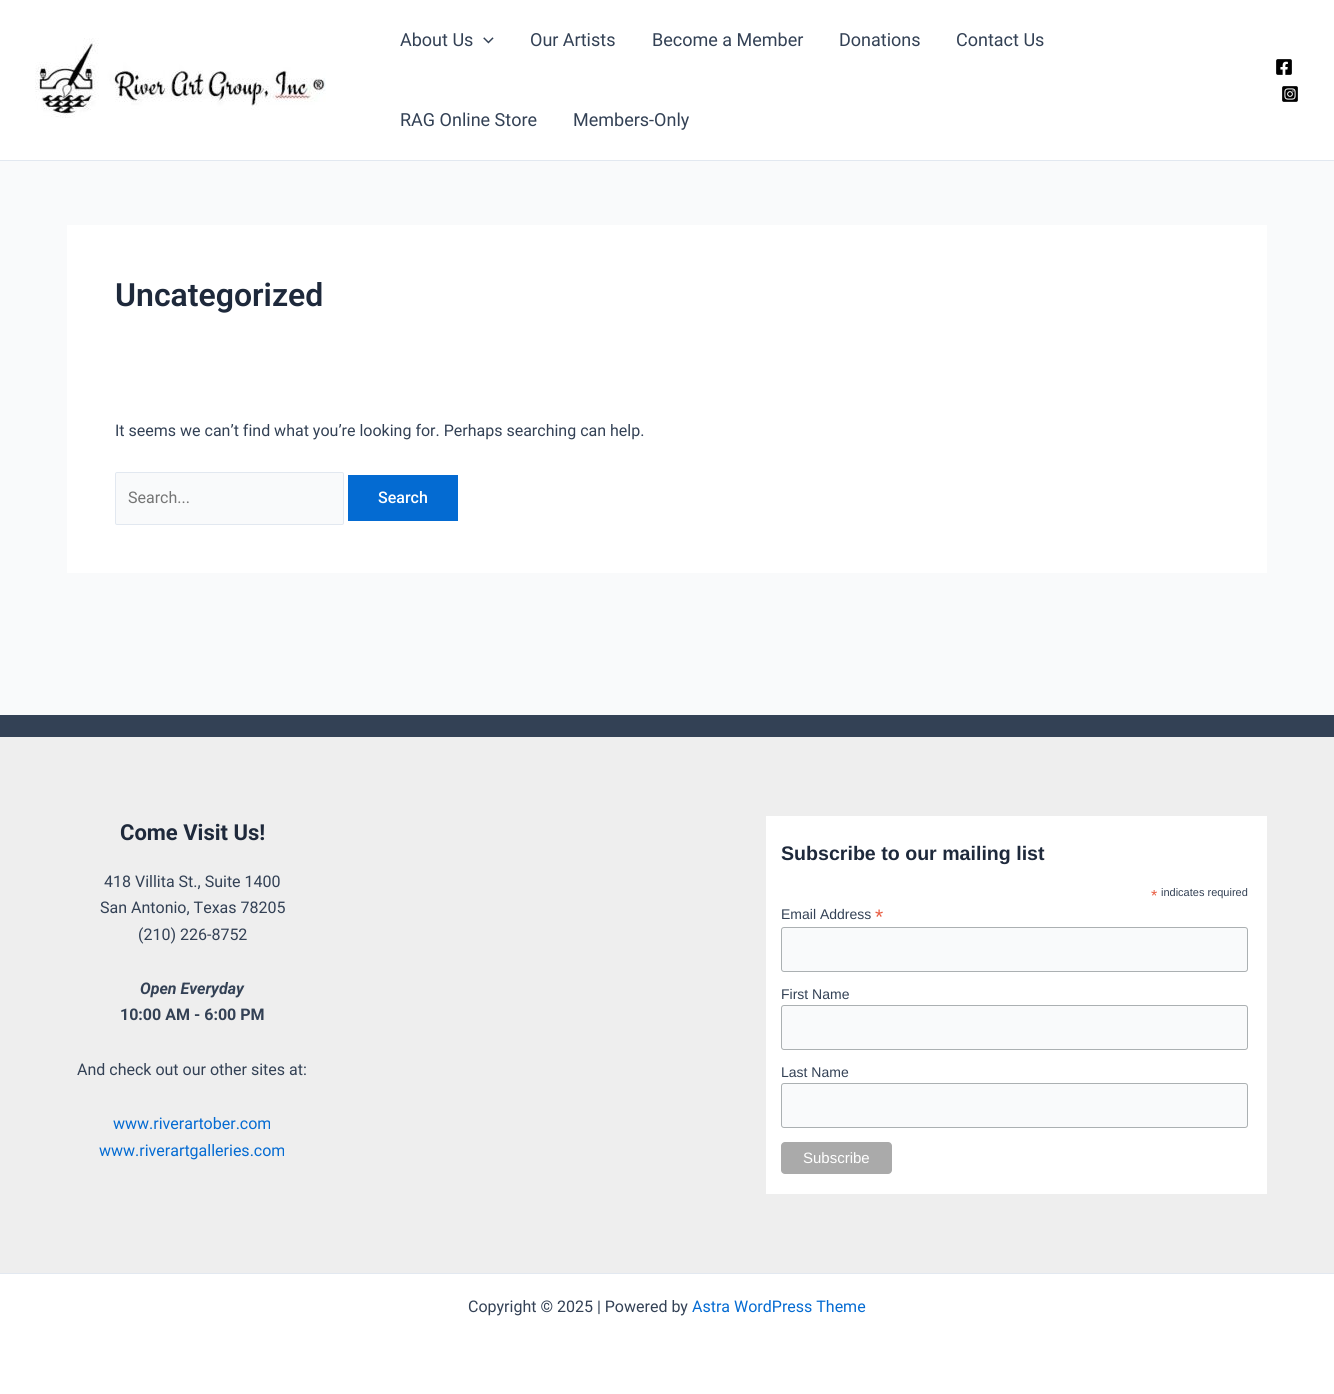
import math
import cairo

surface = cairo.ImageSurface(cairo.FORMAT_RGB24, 1334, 1394)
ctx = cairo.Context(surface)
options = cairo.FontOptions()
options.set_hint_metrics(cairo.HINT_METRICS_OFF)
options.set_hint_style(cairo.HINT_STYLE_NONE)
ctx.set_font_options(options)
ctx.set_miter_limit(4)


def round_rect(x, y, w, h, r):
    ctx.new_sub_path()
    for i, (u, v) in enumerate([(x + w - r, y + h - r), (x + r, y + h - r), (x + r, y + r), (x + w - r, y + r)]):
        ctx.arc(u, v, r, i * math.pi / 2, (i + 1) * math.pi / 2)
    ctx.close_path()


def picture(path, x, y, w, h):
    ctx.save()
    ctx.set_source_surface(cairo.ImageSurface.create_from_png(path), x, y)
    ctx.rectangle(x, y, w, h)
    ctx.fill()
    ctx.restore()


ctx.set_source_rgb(0.976, 0.98, 0.984)
ctx.paint()
ctx.set_source_rgb(1, 1, 1)
ctx.rectangle(0, 0, 1334, 160)
ctx.fill()
ctx.set_source_rgb(0.886, 0.91, 0.941)
ctx.rectangle(0, 160, 1334, 1)
ctx.fill()
picture("img1.png", 35, 38, 291, 80)
ctx.select_font_face("Roboto")
ctx.set_font_size(18)
ctx.set_source_rgb(0.2, 0.255, 0.333)
ctx.move_to(400, 46)
ctx.show_text("About Us")
picture("img2.png", 483, 37, 11, 7)
ctx.move_to(530, 46)
ctx.show_text("Our Artists")
ctx.move_to(652, 46)
ctx.show_text("Become a Member")
ctx.move_to(839, 46)
ctx.show_text("Donations")
ctx.move_to(956, 46)
ctx.show_text("Contact Us")
ctx.move_to(400, 126)
ctx.show_text("RAG Online Store")
ctx.move_to(573, 126)
ctx.show_text("Members-Only")
picture("img3.png", 1276, 59, 16, 16)
picture("img4.png", 1282, 86, 16, 16)
ctx.set_source_rgb(1, 1, 1)
ctx.rectangle(67, 225, 1200, 348)
ctx.fill()
ctx.select_font_face("Roboto SemiBold")
ctx.set_font_size(32)
ctx.set_source_rgb(0.118, 0.161, 0.231)
ctx.move_to(115, 306)
ctx.show_text("Uncategorized")
ctx.select_font_face("Roboto")
ctx.set_font_size(16)
ctx.set_source_rgb(0.2, 0.255, 0.333)
ctx.move_to(115, 436)
ctx.show_text("It seems we can’t find what you’re looking for. Perhaps searching can help.")
ctx.set_source_rgb(0.976, 0.98, 0.984)
round_rect(115.5, 472.5, 228, 52, 1.5)
ctx.fill_preserve()
ctx.set_source_rgb(0.886, 0.91, 0.941)
ctx.set_line_width(1)
ctx.stroke()
ctx.set_source_rgb(0.459, 0.459, 0.459)
ctx.move_to(128, 503)
ctx.show_text("Search...")
ctx.set_source_rgb(0.016, 0.42, 0.824)
ctx.rectangle(348, 475, 110, 46)
ctx.fill()
ctx.select_font_face("Roboto Medium")
ctx.set_source_rgb(1, 1, 1)
ctx.move_to(378, 503)
ctx.show_text("Search")
ctx.set_source_rgb(0.933, 0.933, 0.933)
ctx.rectangle(0, 737, 1334, 536)
ctx.fill()
ctx.set_source_rgb(0.2, 0.255, 0.333)
ctx.rectangle(0, 715, 1334, 22)
ctx.fill()
ctx.select_font_face("Roboto", cairo.FONT_SLANT_NORMAL, cairo.FONT_WEIGHT_BOLD)
ctx.set_font_size(22)
ctx.set_source_rgb(0.118, 0.161, 0.231)
ctx.move_to(120, 840)
ctx.show_text("Come Visit Us!")
ctx.select_font_face("Roboto")
ctx.set_font_size(16)
ctx.set_source_rgb(0.2, 0.255, 0.333)
ctx.move_to(104, 887)
ctx.show_text("418 Villita St., Suite 1400")
ctx.move_to(100, 913)
ctx.show_text("San Antonio, Texas 78205")
ctx.move_to(138, 940)
ctx.show_text("(210) 226-8752")
ctx.select_font_face("Roboto", cairo.FONT_SLANT_ITALIC, cairo.FONT_WEIGHT_BOLD)
ctx.move_to(140, 994)
ctx.show_text("Open Everyday")
ctx.select_font_face("Roboto", cairo.FONT_SLANT_NORMAL, cairo.FONT_WEIGHT_BOLD)
ctx.move_to(120, 1020)
ctx.show_text("10:00 AM - 6:00 PM")
ctx.select_font_face("Roboto")
ctx.move_to(77, 1075)
ctx.show_text("And check out our other sites at:")
ctx.set_source_rgb(0.016, 0.42, 0.824)
ctx.move_to(113, 1129)
ctx.show_text("www.riverartober.com")
ctx.move_to(99, 1156)
ctx.show_text("www.riverartgalleries.com")
ctx.set_source_rgb(1, 1, 1)
ctx.rectangle(766, 816, 501, 378)
ctx.fill()
ctx.select_font_face("Liberation Sans", cairo.FONT_SLANT_NORMAL, cairo.FONT_WEIGHT_BOLD)
ctx.set_font_size(19.6)
ctx.set_source_rgb(0.118, 0.161, 0.231)
ctx.move_to(781, 860)
ctx.show_text("Subscribe to our mailing list")
ctx.select_font_face("Liberation Sans")
ctx.set_font_size(16)
ctx.set_source_rgb(0.91, 0.361, 0.255)
ctx.move_to(1151, 901)
ctx.show_text("*")
ctx.set_font_size(11)
ctx.set_source_rgb(0.2, 0.255, 0.333)
ctx.move_to(1161, 896)
ctx.show_text("indicates required")
ctx.set_font_size(14)
ctx.move_to(781, 919)
ctx.show_text("Email Address")
ctx.set_font_size(21)
ctx.set_source_rgb(0.91, 0.361, 0.255)
ctx.move_to(875, 924)
ctx.show_text("*")
ctx.set_source_rgb(0.976, 0.98, 0.984)
round_rect(781.5, 927.5, 466, 44, 2.5)
ctx.fill_preserve()
ctx.set_source_rgb(0.671, 0.69, 0.698)
ctx.stroke()
ctx.set_font_size(14)
ctx.set_source_rgb(0.2, 0.255, 0.333)
ctx.move_to(781, 999)
ctx.show_text("First Name")
ctx.set_source_rgb(0.976, 0.98, 0.984)
round_rect(781.5, 1005.5, 466, 44, 2.5)
ctx.fill_preserve()
ctx.set_source_rgb(0.671, 0.69, 0.698)
ctx.stroke()
ctx.set_source_rgb(0.2, 0.255, 0.333)
ctx.move_to(781, 1077)
ctx.show_text("Last Name")
ctx.set_source_rgb(0.976, 0.98, 0.984)
round_rect(781.5, 1083.5, 466, 44, 2.5)
ctx.fill_preserve()
ctx.set_source_rgb(0.671, 0.69, 0.698)
ctx.stroke()
ctx.set_source_rgb(0.667, 0.667, 0.667)
round_rect(781, 1142, 111, 32, 4)
ctx.fill()
ctx.set_font_size(15)
ctx.set_source_rgb(1, 1, 1)
ctx.move_to(803, 1163)
ctx.show_text("Subscribe")
ctx.rectangle(0, 1274, 1334, 120)
ctx.fill()
ctx.set_source_rgb(0.886, 0.91, 0.941)
ctx.rectangle(0, 1273, 1334, 1)
ctx.fill()
ctx.select_font_face("Roboto")
ctx.set_font_size(16)
ctx.set_source_rgb(0.2, 0.255, 0.333)
ctx.move_to(468, 1312)
ctx.show_text("Copyright © 2025 | Powered by")
ctx.set_source_rgb(0.016, 0.42, 0.824)
ctx.move_to(692, 1312)
ctx.show_text("Astra WordPress Theme")
surface.write_to_png("page.png")
